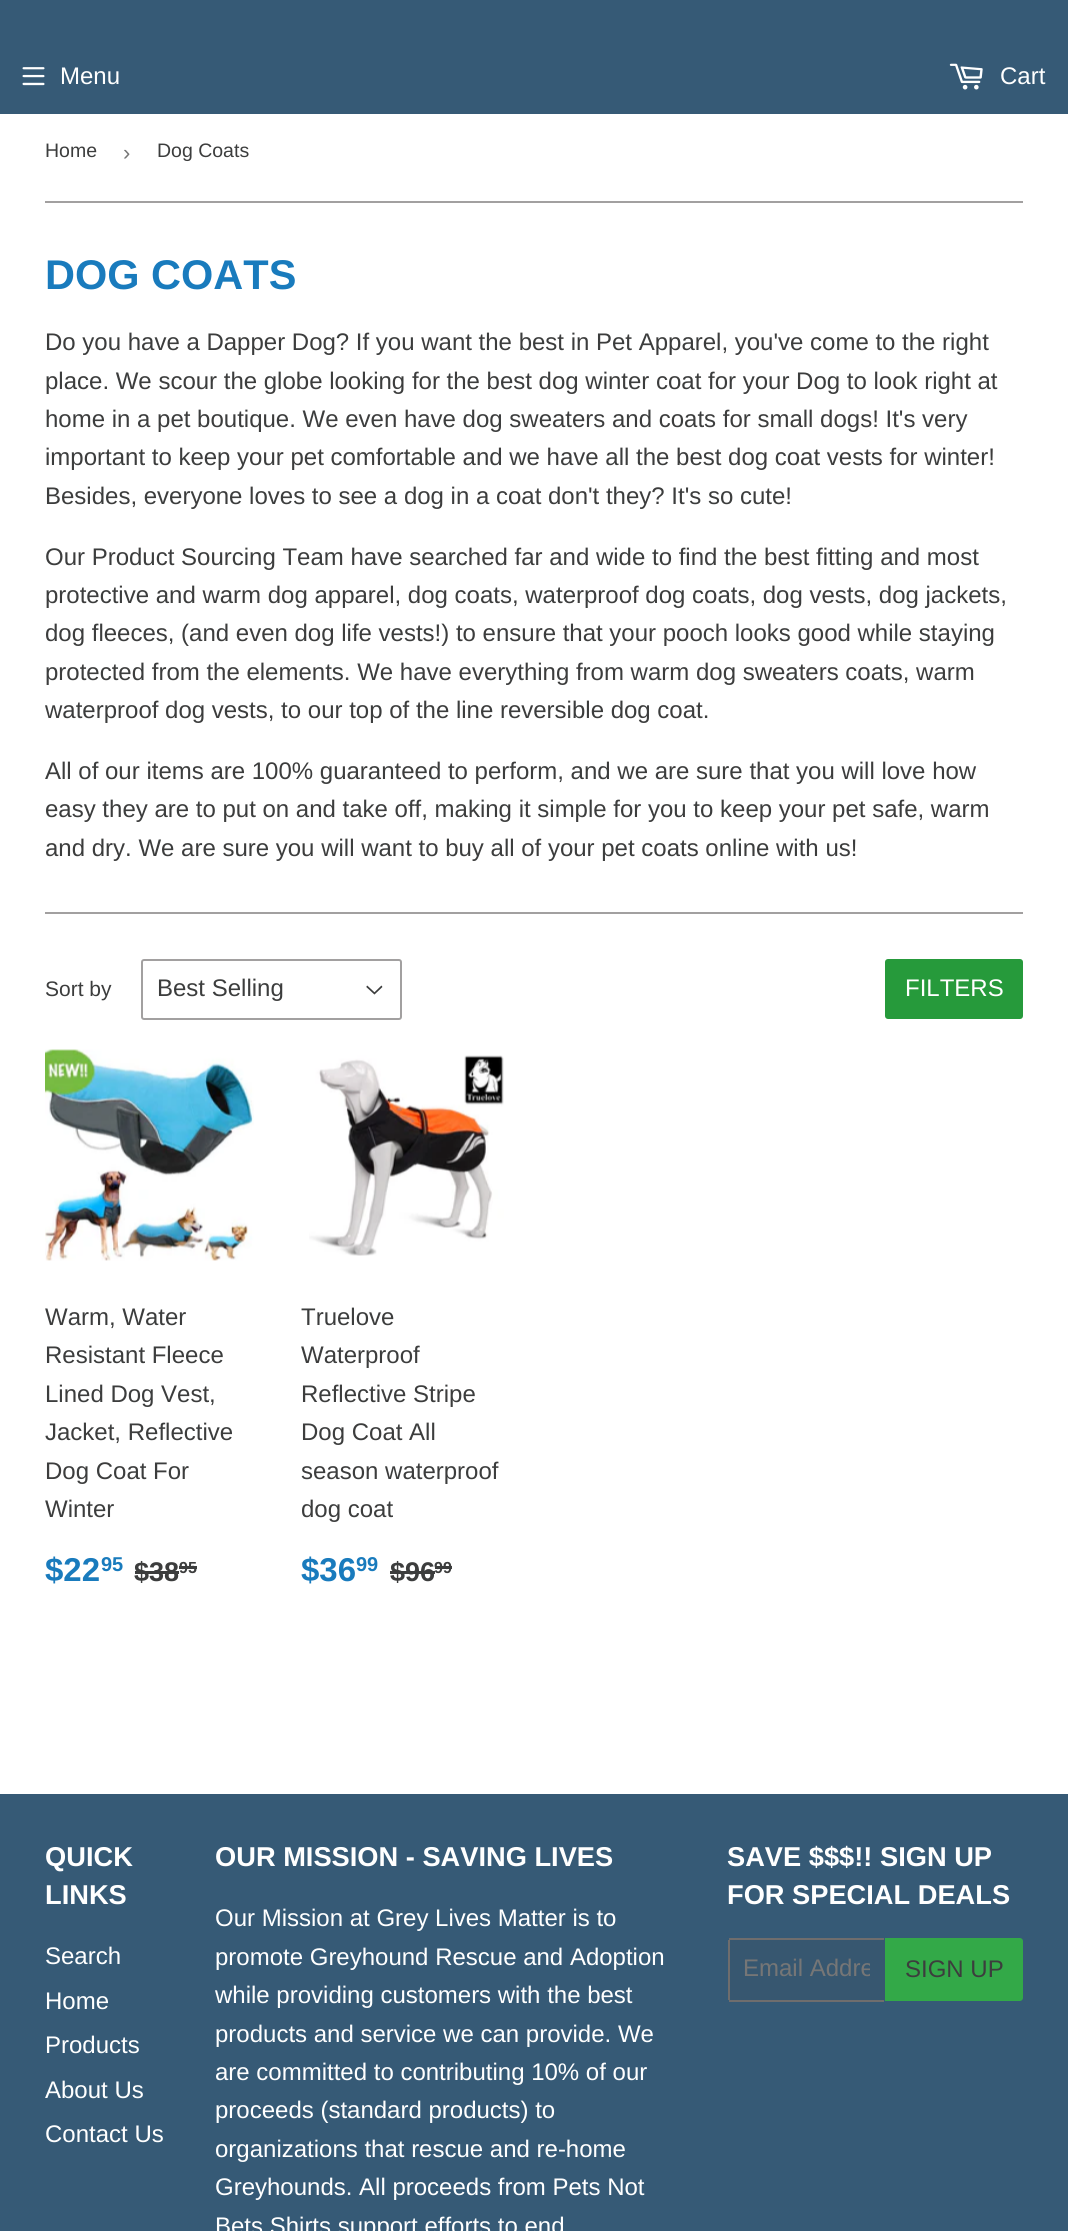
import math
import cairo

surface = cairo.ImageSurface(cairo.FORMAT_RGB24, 1068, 2231)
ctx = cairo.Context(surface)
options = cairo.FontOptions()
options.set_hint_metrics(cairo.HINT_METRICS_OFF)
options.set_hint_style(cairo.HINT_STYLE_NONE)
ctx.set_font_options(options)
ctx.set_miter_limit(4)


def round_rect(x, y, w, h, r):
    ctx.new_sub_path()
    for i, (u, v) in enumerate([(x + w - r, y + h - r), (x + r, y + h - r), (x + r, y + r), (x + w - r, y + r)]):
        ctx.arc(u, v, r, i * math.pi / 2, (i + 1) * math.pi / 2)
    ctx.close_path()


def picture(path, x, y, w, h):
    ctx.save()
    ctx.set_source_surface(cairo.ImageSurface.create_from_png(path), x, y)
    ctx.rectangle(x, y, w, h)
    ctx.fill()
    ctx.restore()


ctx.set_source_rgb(1, 1, 1)
ctx.paint()
ctx.set_source_rgb(0.212, 0.353, 0.463)
ctx.rectangle(0, 0, 1068, 114)
ctx.fill()
picture("img1.png", 22, 67, 23, 19)
ctx.select_font_face("Liberation Sans")
ctx.set_font_size(24)
ctx.set_source_rgb(1, 1, 1)
ctx.move_to(60, 84)
ctx.show_text("Menu")
picture("img2.png", 949, 63, 34, 27)
ctx.move_to(1000, 84)
ctx.show_text("Cart")
ctx.set_source_rgb(0.635, 0.627, 0.627)
ctx.rectangle(45, 201, 978, 2)
ctx.fill()
ctx.set_font_size(19.5)
ctx.set_source_rgb(0.235, 0.239, 0.239)
ctx.move_to(45, 157)
ctx.show_text("Home")
ctx.set_font_size(22)
ctx.set_source_rgb(0.463, 0.463, 0.463)
ctx.move_to(123, 160)
ctx.show_text("›")
ctx.set_font_size(19.5)
ctx.set_source_rgb(0.235, 0.239, 0.239)
ctx.move_to(157, 157)
ctx.show_text("Dog Coats")
ctx.select_font_face("Liberation Sans", cairo.FONT_SLANT_NORMAL, cairo.FONT_WEIGHT_BOLD)
ctx.set_font_size(41.5)
ctx.set_source_rgb(0.098, 0.482, 0.741)
ctx.move_to(45, 289)
ctx.show_text("DOG COATS")
ctx.select_font_face("Liberation Sans")
ctx.set_font_size(24)
ctx.set_source_rgb(0.235, 0.239, 0.239)
ctx.move_to(45, 350)
ctx.show_text("Do you have a Dapper Dog? If you want the best in Pet Apparel, you've come to the right")
ctx.move_to(45, 389)
ctx.show_text("place. We scour the globe looking for the best dog winter coat for your Dog to look right at")
ctx.move_to(45, 427)
ctx.show_text("home in a pet boutique. We even have dog sweaters and coats for small dogs! It's very")
ctx.move_to(45, 465)
ctx.show_text("important to keep your pet comfortable and we have all the best dog coat vests for winter!")
ctx.move_to(45, 504)
ctx.show_text("Besides, everyone loves to see a dog in a coat don't they? It's so cute!")
ctx.move_to(45, 565)
ctx.show_text("Our Product Sourcing Team have searched far and wide to find the best fitting and most")
ctx.move_to(45, 603)
ctx.show_text("protective and warm dog apparel, dog coats, waterproof dog coats, dog vests, dog jackets,")
ctx.move_to(45, 641)
ctx.show_text("dog fleeces, (and even dog life vests!) to ensure that your pooch looks good while staying")
ctx.move_to(45, 680)
ctx.show_text("protected from the elements. We have everything from warm dog sweaters coats, warm")
ctx.move_to(45, 718)
ctx.show_text("waterproof dog vests, to our top of the line reversible dog coat.")
ctx.move_to(45, 779)
ctx.show_text("All of our items are 100% guaranteed to perform, and we are sure that you will love how")
ctx.move_to(45, 817)
ctx.show_text("easy they are to put on and take off, making it simple for you to keep your pet safe, warm")
ctx.move_to(45, 856)
ctx.show_text("and dry. We are sure you will want to buy all of your pet coats online with us!")
ctx.set_source_rgb(0.635, 0.627, 0.627)
ctx.rectangle(45, 912, 978, 2)
ctx.fill()
ctx.set_font_size(21)
ctx.set_source_rgb(0.235, 0.239, 0.239)
ctx.move_to(45, 996)
ctx.show_text("Sort by")
picture("img3.png", 366, 985, 17, 10)
round_rect(142, 960, 259, 59, 2)
ctx.set_source_rgb(0.635, 0.627, 0.627)
ctx.stroke()
ctx.set_font_size(24)
ctx.set_source_rgb(0.235, 0.239, 0.239)
ctx.move_to(157, 996)
ctx.show_text("Best Selling")
ctx.set_source_rgb(0.149, 0.604, 0.231)
round_rect(885, 959, 138, 60, 3)
ctx.fill()
ctx.set_source_rgb(1, 1, 1)
ctx.move_to(905, 996)
ctx.show_text("FILTERS")
picture("img4.png", 45, 1049, 209, 212)
ctx.set_source_rgb(0.235, 0.239, 0.239)
ctx.move_to(45, 1325)
ctx.show_text("Warm, Water")
ctx.move_to(45, 1363)
ctx.show_text("Resistant Fleece")
ctx.move_to(45, 1402)
ctx.show_text("Lined Dog Vest,")
ctx.move_to(45, 1440)
ctx.show_text("Jacket, Reflective")
ctx.move_to(45, 1479)
ctx.show_text("Dog Coat For")
ctx.move_to(45, 1517)
ctx.show_text("Winter")
ctx.select_font_face("Liberation Sans", cairo.FONT_SLANT_NORMAL, cairo.FONT_WEIGHT_BOLD)
ctx.set_font_size(33)
ctx.set_source_rgb(0.098, 0.482, 0.741)
ctx.move_to(45, 1581)
ctx.show_text("$22")
ctx.set_font_size(20)
ctx.move_to(101, 1571)
ctx.show_text("95")
ctx.set_font_size(27)
ctx.set_source_rgb(0.235, 0.239, 0.239)
ctx.move_to(134, 1581)
ctx.show_text("$38")
ctx.rectangle(135, 1571, 44, 3)
ctx.fill()
ctx.set_font_size(16)
ctx.move_to(179, 1573)
ctx.show_text("95")
ctx.rectangle(179, 1566, 18, 3)
ctx.fill()
picture("img5.png", 309, 1055, 195, 201)
ctx.select_font_face("Liberation Sans")
ctx.set_font_size(24)
ctx.move_to(301, 1325)
ctx.show_text("Truelove")
ctx.move_to(301, 1363)
ctx.show_text("Waterproof")
ctx.move_to(301, 1402)
ctx.show_text("Reflective Stripe")
ctx.move_to(301, 1440)
ctx.show_text("Dog Coat All")
ctx.move_to(301, 1479)
ctx.show_text("season waterproof")
ctx.move_to(301, 1517)
ctx.show_text("dog coat")
ctx.select_font_face("Liberation Sans", cairo.FONT_SLANT_NORMAL, cairo.FONT_WEIGHT_BOLD)
ctx.set_font_size(33)
ctx.set_source_rgb(0.098, 0.482, 0.741)
ctx.move_to(301, 1581)
ctx.show_text("$36")
ctx.set_font_size(20)
ctx.move_to(356, 1571)
ctx.show_text("99")
ctx.set_font_size(27)
ctx.set_source_rgb(0.235, 0.239, 0.239)
ctx.move_to(390, 1581)
ctx.show_text("$96")
ctx.rectangle(390, 1571, 45, 3)
ctx.fill()
ctx.set_font_size(16)
ctx.move_to(434, 1573)
ctx.show_text("99")
ctx.rectangle(435, 1566, 17, 3)
ctx.fill()
ctx.set_source_rgb(0.212, 0.353, 0.463)
ctx.rectangle(0, 1794, 1068, 437)
ctx.fill()
ctx.set_font_size(27.25)
ctx.set_source_rgb(1, 1, 1)
ctx.move_to(45, 1866)
ctx.show_text("QUICK")
ctx.move_to(45, 1904)
ctx.show_text("LINKS")
ctx.select_font_face("Liberation Sans")
ctx.set_font_size(24)
ctx.move_to(45, 1964)
ctx.show_text("Search")
ctx.move_to(45, 2009)
ctx.show_text("Home")
ctx.move_to(45, 2053)
ctx.show_text("Products")
ctx.move_to(45, 2098)
ctx.show_text("About Us")
ctx.move_to(45, 2142)
ctx.show_text("Contact Us")
ctx.select_font_face("Liberation Sans", cairo.FONT_SLANT_NORMAL, cairo.FONT_WEIGHT_BOLD)
ctx.set_font_size(27.25)
ctx.move_to(215, 1866)
ctx.show_text("OUR MISSION - SAVING LIVES")
ctx.select_font_face("Liberation Sans")
ctx.set_font_size(24)
ctx.move_to(215, 1926)
ctx.show_text("Our Mission at Grey Lives Matter is to")
ctx.move_to(215, 1965)
ctx.show_text("promote Greyhound Rescue and Adoption")
ctx.move_to(215, 2003)
ctx.show_text("while providing customers with the best")
ctx.move_to(215, 2042)
ctx.show_text("products and service we can provide. We")
ctx.move_to(215, 2080)
ctx.show_text("are committed to contributing 10% of our")
ctx.move_to(215, 2118)
ctx.show_text("proceeds (standard products) to")
ctx.move_to(215, 2157)
ctx.show_text("organizations that rescue and re-home")
ctx.move_to(215, 2195)
ctx.show_text("Greyhounds. All proceeds from Pets Not")
ctx.move_to(215, 2234)
ctx.show_text("Bets Shirts support efforts to end")
ctx.select_font_face("Liberation Sans", cairo.FONT_SLANT_NORMAL, cairo.FONT_WEIGHT_BOLD)
ctx.set_font_size(27.25)
ctx.move_to(727, 1866)
ctx.show_text("SAVE $$$!! SIGN UP")
ctx.move_to(727, 1904)
ctx.show_text("FOR SPECIAL DEALS")
ctx.set_source_rgb(0.216, 0.341, 0.439)
round_rect(728, 1938, 157, 63, 3)
ctx.fill()
ctx.set_source_rgb(0.435, 0.427, 0.427)
ctx.rectangle(729, 1938, 155, 2)
ctx.fill()
ctx.rectangle(729, 2000, 155, 2)
ctx.fill()
ctx.rectangle(728, 1940, 2, 60)
ctx.fill()
ctx.save()
ctx.rectangle(744, 1956, 126, 27)
ctx.clip()
ctx.select_font_face("Liberation Sans")
ctx.set_font_size(24)
ctx.set_source_rgb(0.463, 0.463, 0.463)
ctx.move_to(743, 1976)
ctx.show_text("Email Addre")
ctx.restore()
ctx.set_source_rgb(0.2, 0.663, 0.282)
ctx.new_path()
ctx.move_to(885, 1938)
ctx.line_to(1020, 1938)
ctx.curve_to(1021.5, 1938, 1023, 1939.5, 1023, 1941)
ctx.line_to(1023, 1998)
ctx.curve_to(1023, 1999.5, 1021.5, 2001, 1020, 2001)
ctx.line_to(885, 2001)
ctx.close_path()
ctx.fill()
ctx.select_font_face("Liberation Sans")
ctx.set_font_size(24)
ctx.set_source_rgb(0.235, 0.239, 0.239)
ctx.move_to(905, 1977)
ctx.show_text("SIGN UP")
surface.write_to_png("page.png")
